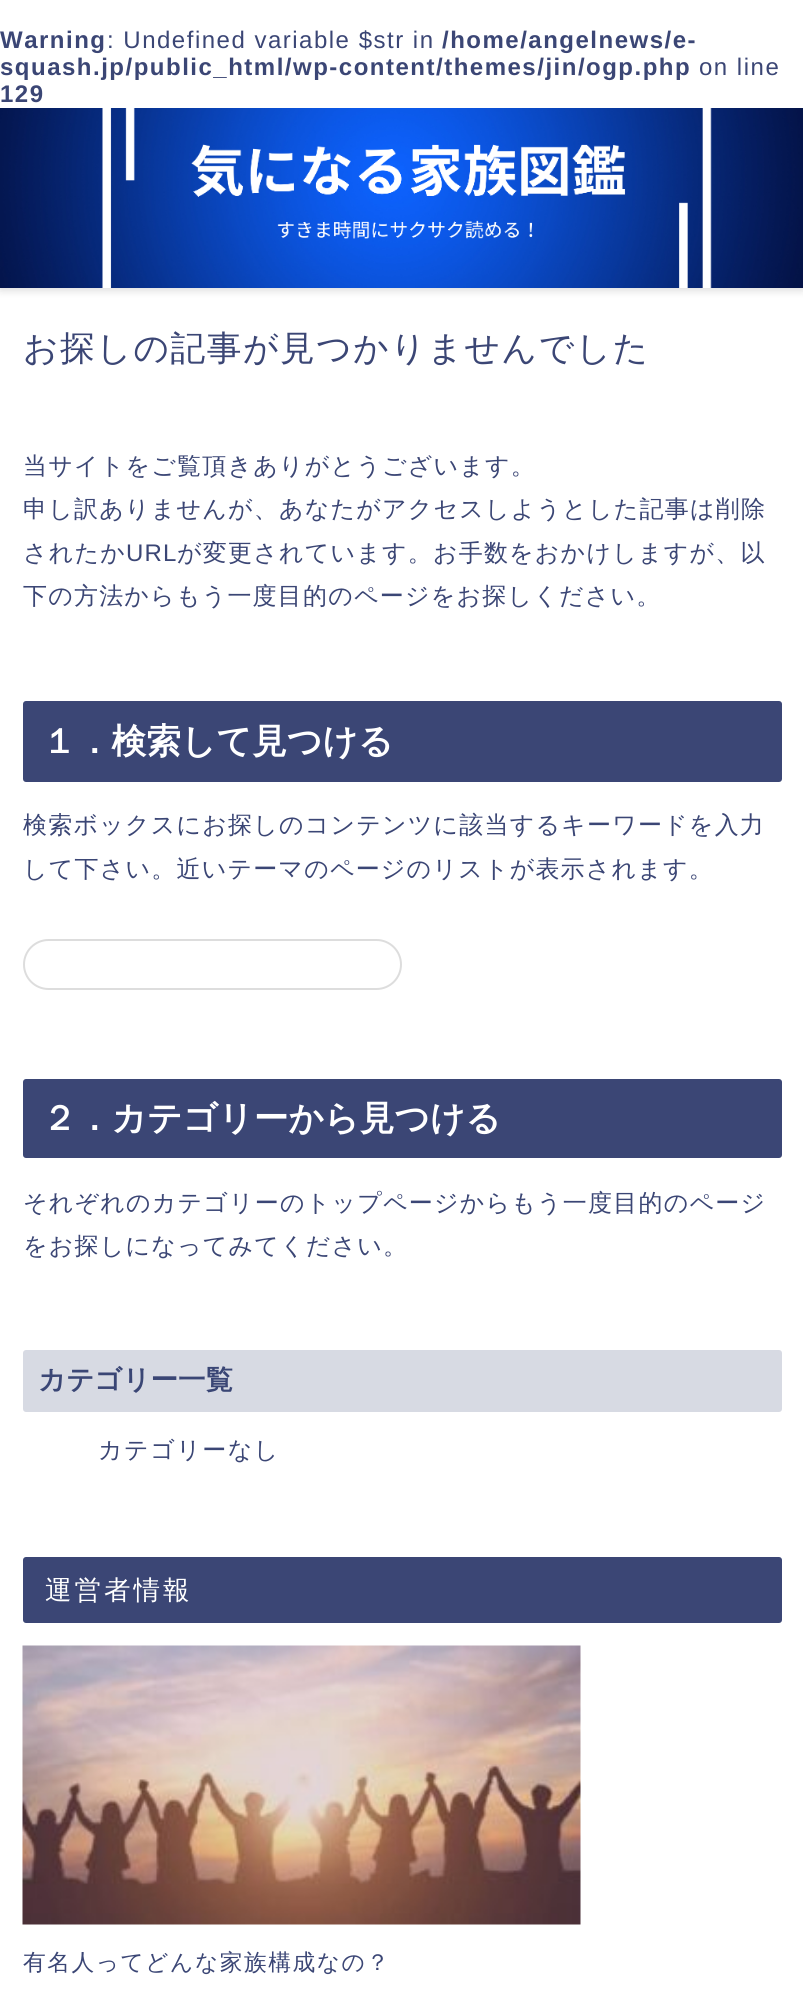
import math
import cairo

surface = cairo.ImageSurface(cairo.FORMAT_RGB24, 803, 1990)
ctx = cairo.Context(surface)
options = cairo.FontOptions()
options.set_hint_metrics(cairo.HINT_METRICS_OFF)
options.set_hint_style(cairo.HINT_STYLE_NONE)
ctx.set_font_options(options)
ctx.set_miter_limit(4)


def spaced_text(x, y, s, letter, word):
    ctx.move_to(x, y)
    for ch in s:
        ctx.show_text(ch)
        ctx.rel_move_to(letter + word * (ch == ' '), 0)


def round_rect(x, y, w, h, r):
    ctx.new_sub_path()
    for i, (u, v) in enumerate([(x + w - r, y + h - r), (x + r, y + h - r), (x + r, y + r), (x + w - r, y + r)]):
        ctx.arc(u, v, r, i * math.pi / 2, (i + 1) * math.pi / 2)
    ctx.close_path()


def shadow(x, y, w, h, r, blur, alpha):
    ctx.push_group_with_content(cairo.CONTENT_ALPHA)
    ctx.set_operator(cairo.OPERATOR_SOURCE)
    for i in range(15, -16, -2):
        e = blur * i / 6
        if min(w, h) + 2 * e > 0:
            ctx.set_source_rgba(0, 0, 0, alpha * math.erfc((i - 1) / 8.5) / 2)
            round_rect(x - e, y - e, w + 2 * e, h + 2 * e, max(0, min(r + e + blur * .6, min(w, h) / 2 + e)))
            ctx.fill()
    ctx.mask(ctx.pop_group())


def picture(path, x, y, w, h):
    ctx.save()
    ctx.set_source_surface(cairo.ImageSurface.create_from_png(path), x, y)
    ctx.rectangle(x, y, w, h)
    ctx.fill()
    ctx.restore()


ctx.set_source_rgb(1, 1, 1)
ctx.paint()
ctx.select_font_face("Liberation Sans", cairo.FONT_SLANT_NORMAL, cairo.FONT_WEIGHT_BOLD)
ctx.set_font_size(24)
ctx.set_source_rgb(0.231, 0.275, 0.459)
spaced_text(0, 48, "Warning", 1.5, 0)
ctx.select_font_face("Liberation Sans")
spaced_text(107, 48, ": Undefined variable $str in", 1.5, 0)
ctx.select_font_face("Liberation Sans", cairo.FONT_SLANT_NORMAL, cairo.FONT_WEIGHT_BOLD)
spaced_text(442, 48, "/home/angelnews/e-", 1.5, 0)
spaced_text(0, 75, "squash.jp/public_html/wp-content/themes/jin/ogp.php", 1.5, 0)
ctx.select_font_face("Liberation Sans")
spaced_text(699, 75, "on line", 1.5, 0)
ctx.select_font_face("Liberation Sans", cairo.FONT_SLANT_NORMAL, cairo.FONT_WEIGHT_BOLD)
spaced_text(0, 102, "129", 1.5, 0)
ctx.save()
ctx.rectangle(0, 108, 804, 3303)
ctx.clip()
ctx.set_source_rgb(0, 0, 0)
shadow(0, 110, 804, 180, 0, 4.5, 0.15)
ctx.restore()
picture("img1.png", 0, 108, 803, 180)
ctx.select_font_face("WenQuanYi Zen Hei Medium")
ctx.set_font_size(34.75)
spaced_text(23, 360, "お探しの記事が見つかりませんでした", 1.5, 0)
ctx.set_font_size(24)
spaced_text(23, 474, "当サイトをご覧頂きありがとうございます。", 1.2, 0)
spaced_text(23, 517, "申し訳ありませんが、あなたがアクセスしようとした記事は削除", 1.2, 0)
spaced_text(23, 561, "されたか", 1.2, 0)
ctx.select_font_face("Liberation Sans")
spaced_text(126, 561, "URL", 1.2, 0)
ctx.select_font_face("WenQuanYi Zen Hei Medium")
spaced_text(177, 561, "が変更されています。お手数をおかけしますが、以", 1.2, 0)
spaced_text(23, 604, "下の方法からもう一度目的のページをお探しください。", 1.2, 0)
round_rect(23, 701, 759, 81, 3)
ctx.fill()
ctx.select_font_face("WenQuanYi Zen Hei", cairo.FONT_SLANT_NORMAL, cairo.FONT_WEIGHT_BOLD)
ctx.set_font_size(34.75)
ctx.set_source_rgb(1, 1, 1)
ctx.move_to(42, 753)
ctx.show_text("１．検索して見つける")
ctx.select_font_face("WenQuanYi Zen Hei Medium")
ctx.set_font_size(24)
ctx.set_source_rgb(0.231, 0.275, 0.459)
spaced_text(23, 833, "検索ボックスにお探しのコンテンツに該当するキーワードを入力", 1.2, 0)
spaced_text(23, 877, "して下さい。近いテーマのページのリストが表示されます。", 1.2, 0)
round_rect(24, 940, 377, 49, 24.5)
ctx.set_source_rgb(0.867, 0.867, 0.867)
ctx.stroke()
ctx.set_source_rgb(0.231, 0.275, 0.459)
round_rect(23, 1079, 759, 79, 3)
ctx.fill()
ctx.select_font_face("WenQuanYi Zen Hei", cairo.FONT_SLANT_NORMAL, cairo.FONT_WEIGHT_BOLD)
ctx.set_font_size(34.75)
ctx.set_source_rgb(1, 1, 1)
ctx.move_to(42, 1130)
ctx.show_text("２．カテゴリーから見つける")
ctx.select_font_face("WenQuanYi Zen Hei Medium")
ctx.set_font_size(24)
ctx.set_source_rgb(0.231, 0.275, 0.459)
spaced_text(23, 1211, "それぞれのカテゴリーのトップページからもう一度目的のページ", 1.2, 0)
spaced_text(23, 1254, "をお探しになってみてください。", 1.2, 0)
ctx.select_font_face("WenQuanYi Zen Hei", cairo.FONT_SLANT_NORMAL, cairo.FONT_WEIGHT_BOLD)
ctx.set_font_size(27.5)
ctx.move_to(38, 1389)
ctx.show_text("カテゴリー一覧")
ctx.set_source_rgba(0.231, 0.275, 0.459, 0.2)
round_rect(23, 1350, 759, 62, 3)
ctx.fill()
ctx.select_font_face("WenQuanYi Zen Hei Medium")
ctx.set_font_size(24)
ctx.set_source_rgb(0.231, 0.275, 0.459)
spaced_text(98, 1458, "カテゴリーなし", 1.5, 0)
round_rect(23, 1557, 759, 66, 3)
ctx.fill()
ctx.set_font_size(26.5)
ctx.set_source_rgb(1, 1, 1)
spaced_text(45, 1599, "運営者情報", 3, 0)
picture("img2.png", 22, 1645, 559, 280)
ctx.set_font_size(22.75)
ctx.set_source_rgb(0.231, 0.275, 0.459)
spaced_text(23, 1970, "有名人ってどんな家族構成なの？", 1.5, 0)
surface.write_to_png("page.png")
